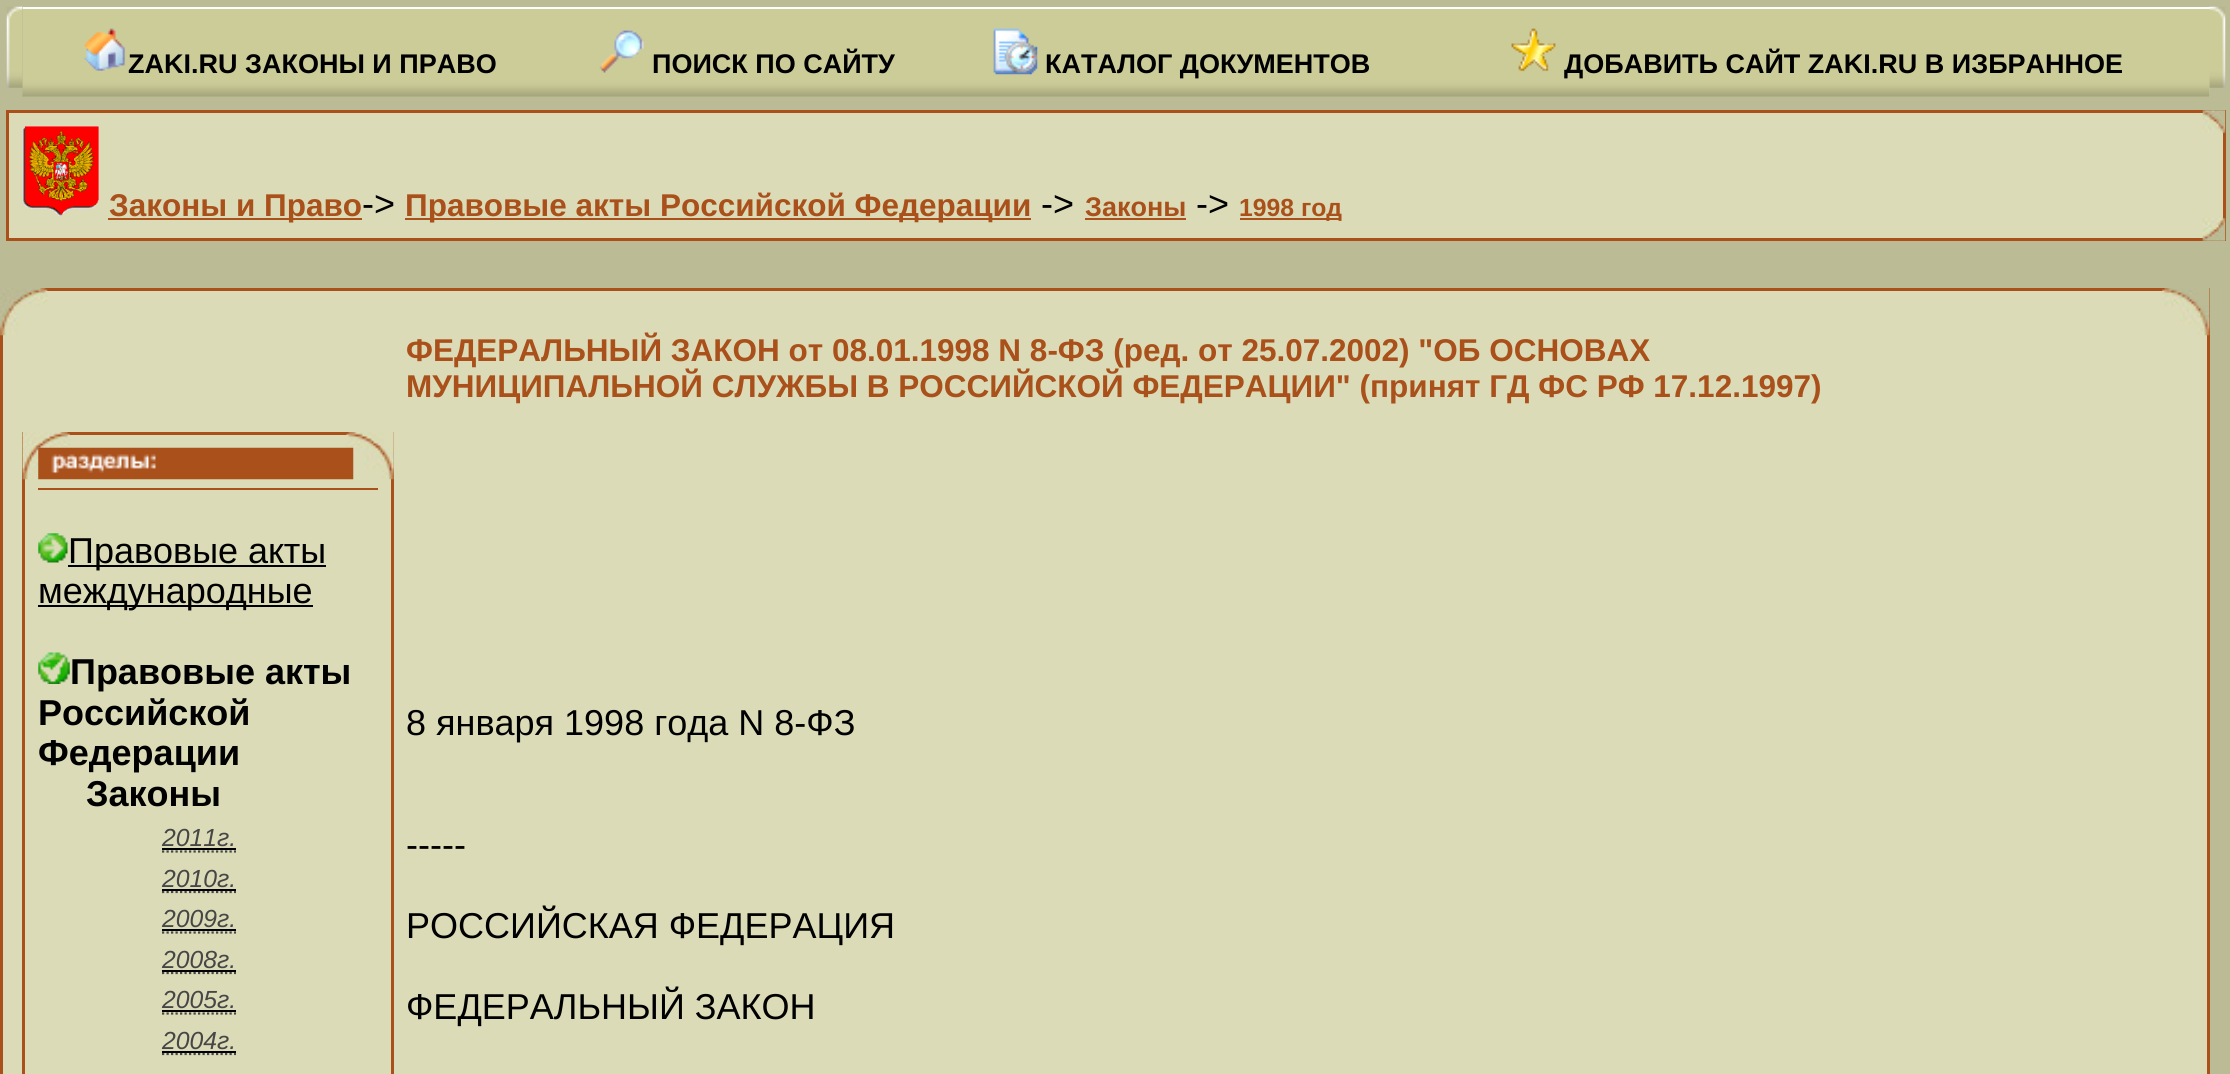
import math
import cairo

surface = cairo.ImageSurface(cairo.FORMAT_RGB24, 2230, 1074)
ctx = cairo.Context(surface)
options = cairo.FontOptions()
options.set_hint_metrics(cairo.HINT_METRICS_OFF)
options.set_hint_style(cairo.HINT_STYLE_NONE)
ctx.set_font_options(options)
ctx.set_miter_limit(4)


def picture(path, x, y, w, h):
    ctx.save()
    ctx.set_source_surface(cairo.ImageSurface.create_from_png(path), x, y)
    ctx.rectangle(x, y, w, h)
    ctx.fill()
    ctx.restore()


ctx.set_source_rgb(0.733, 0.733, 0.584)
ctx.paint()
ctx.set_source_rgb(0.8, 0.8, 0.6)
ctx.rectangle(23, 9, 2187, 88)
ctx.fill()
picture("img2.png", 22, 76, 2188, 21)
picture("img1.png", 6, 6, 17, 82)
ctx.set_source_rgb(1, 1, 1)
ctx.rectangle(23, 7, 2187, 2)
ctx.fill()
picture("img3.png", 84, 28, 42, 43)
ctx.select_font_face("Liberation Sans", cairo.FONT_SLANT_NORMAL, cairo.FONT_WEIGHT_BOLD)
ctx.set_font_size(27)
ctx.set_source_rgb(0, 0, 0)
ctx.move_to(128, 73)
ctx.show_text("ZAKI.RU ЗАКОНЫ И ПРАВО")
picture("img4.png", 599, 30, 45, 43)
ctx.move_to(652, 73)
ctx.show_text("ПОИСК ПО САЙТУ")
picture("img5.png", 993, 28, 45, 47)
ctx.move_to(1045, 73)
ctx.show_text("КАТАЛОГ ДОКУМЕНТОВ")
picture("img6.png", 1511, 28, 45, 44)
ctx.move_to(1564, 73)
ctx.show_text("ДОБАВИТЬ САЙТ ZAKI.RU В ИЗБРАННОЕ")
picture("img7.png", 2209, 6, 17, 82)
ctx.set_source_rgb(0.859, 0.859, 0.718)
ctx.rectangle(9, 113, 2214, 125)
ctx.fill()
ctx.set_source_rgb(0.667, 0.314, 0.106)
ctx.rectangle(6, 110, 2220, 3)
ctx.fill()
ctx.rectangle(6, 238, 2220, 3)
ctx.fill()
ctx.rectangle(6, 113, 3, 125)
ctx.fill()
ctx.rectangle(2223, 113, 3, 125)
ctx.fill()
picture("img8.png", 2202, 218, 24, 23)
picture("img9.png", 2202, 110, 24, 23)
picture("img10.png", 22, 126, 77, 90)
ctx.set_source_rgb(0.663, 0.314, 0.106)
ctx.rectangle(108, 218, 254, 2)
ctx.fill()
ctx.set_font_size(31.5)
ctx.move_to(109, 216)
ctx.show_text("Законы и Право")
ctx.select_font_face("Liberation Sans")
ctx.set_font_size(36)
ctx.set_source_rgb(0, 0, 0)
ctx.move_to(362, 216)
ctx.show_text("->")
ctx.set_source_rgb(0.663, 0.314, 0.106)
ctx.rectangle(405, 218, 626, 2)
ctx.fill()
ctx.select_font_face("Liberation Sans", cairo.FONT_SLANT_NORMAL, cairo.FONT_WEIGHT_BOLD)
ctx.set_font_size(31.5)
ctx.move_to(405, 216)
ctx.show_text("Правовые акты Российской Федерации")
ctx.select_font_face("Liberation Sans")
ctx.set_font_size(36)
ctx.set_source_rgb(0, 0, 0)
ctx.move_to(1041, 216)
ctx.show_text("->")
ctx.select_font_face("Liberation Sans", cairo.FONT_SLANT_NORMAL, cairo.FONT_WEIGHT_BOLD)
ctx.set_font_size(27)
ctx.set_source_rgb(0.663, 0.314, 0.106)
ctx.move_to(1085, 216)
ctx.show_text("Законы")
ctx.rectangle(1085, 218, 101, 2)
ctx.fill()
ctx.select_font_face("Liberation Sans")
ctx.set_font_size(36)
ctx.set_source_rgb(0, 0, 0)
ctx.move_to(1196, 216)
ctx.show_text("->")
ctx.set_source_rgb(0.663, 0.314, 0.106)
ctx.rectangle(1240, 218, 101, 2)
ctx.fill()
ctx.select_font_face("Liberation Sans", cairo.FONT_SLANT_NORMAL, cairo.FONT_WEIGHT_BOLD)
ctx.set_font_size(24.75)
ctx.move_to(1239, 216)
ctx.show_text("1998 год")
ctx.set_source_rgb(0.859, 0.859, 0.718)
ctx.rectangle(3, 291, 2204, 783)
ctx.fill()
ctx.set_source_rgb(0.667, 0.314, 0.106)
ctx.rectangle(47, 288, 2163, 3)
ctx.fill()
ctx.rectangle(0, 335, 3, 739)
ctx.fill()
ctx.rectangle(2207, 291, 3, 783)
ctx.fill()
picture("img11.png", 0, 288, 48, 48)
picture("img12.png", 2162, 288, 48, 48)
ctx.rectangle(22, 432, 372, 3)
ctx.fill()
ctx.rectangle(22, 435, 3, 639)
ctx.fill()
ctx.rectangle(391, 435, 3, 639)
ctx.fill()
picture("img13.png", 22, 432, 48, 48)
picture("img14.png", 346, 432, 48, 48)
picture("img15.png", 38, 447, 316, 33)
ctx.set_source_rgb(0.663, 0.314, 0.106)
ctx.rectangle(38, 488, 340, 2)
ctx.fill()
picture("img16.png", 38, 533, 30, 30)
ctx.set_source_rgb(0, 0, 0)
ctx.rectangle(68, 565, 258, 2)
ctx.fill()
ctx.select_font_face("Liberation Sans")
ctx.set_font_size(36)
ctx.move_to(68, 563)
ctx.show_text("Правовые акты")
ctx.rectangle(38, 605, 275, 2)
ctx.fill()
ctx.move_to(38, 603)
ctx.show_text("международные")
picture("img17.png", 38, 652, 32, 32)
ctx.select_font_face("Liberation Sans", cairo.FONT_SLANT_NORMAL, cairo.FONT_WEIGHT_BOLD)
ctx.move_to(70, 684)
ctx.show_text("Правовые акты")
ctx.move_to(38, 725)
ctx.show_text("Российской")
ctx.move_to(38, 765)
ctx.show_text("Федерации")
ctx.move_to(86, 806)
ctx.show_text("Законы")
ctx.select_font_face("Liberation Sans", cairo.FONT_SLANT_ITALIC)
ctx.set_font_size(24.75)
ctx.set_source_rgb(0.275, 0.275, 0.275)
ctx.move_to(162, 846)
ctx.show_text("2011г.")
ctx.new_path()
ctx.move_to(162, 851.5)
ctx.line_to(236, 851.5)
ctx.set_line_width(2.2)
ctx.set_dash([2.25, 2.25])
ctx.stroke()
ctx.set_source_rgb(0, 0, 0)
ctx.rectangle(162, 848, 74, 2)
ctx.fill()
ctx.set_source_rgb(0.275, 0.275, 0.275)
ctx.move_to(162, 887)
ctx.show_text("2010г.")
ctx.new_path()
ctx.move_to(162, 892)
ctx.line_to(236, 892)
ctx.stroke()
ctx.set_source_rgb(0, 0, 0)
ctx.rectangle(162, 889, 74, 2)
ctx.fill()
ctx.set_source_rgb(0.275, 0.275, 0.275)
ctx.move_to(162, 927)
ctx.show_text("2009г.")
ctx.new_path()
ctx.move_to(162, 932.5)
ctx.line_to(236, 932.5)
ctx.stroke()
ctx.set_source_rgb(0, 0, 0)
ctx.rectangle(162, 929, 74, 2)
ctx.fill()
ctx.set_source_rgb(0.275, 0.275, 0.275)
ctx.move_to(162, 968)
ctx.show_text("2008г.")
ctx.new_path()
ctx.move_to(162, 973)
ctx.line_to(236, 973)
ctx.stroke()
ctx.set_source_rgb(0, 0, 0)
ctx.rectangle(162, 970, 74, 2)
ctx.fill()
ctx.set_source_rgb(0.275, 0.275, 0.275)
ctx.move_to(162, 1008)
ctx.show_text("2005г.")
ctx.new_path()
ctx.move_to(162, 1013.5)
ctx.line_to(236, 1013.5)
ctx.stroke()
ctx.set_source_rgb(0, 0, 0)
ctx.rectangle(162, 1010, 74, 2)
ctx.fill()
ctx.set_source_rgb(0.275, 0.275, 0.275)
ctx.move_to(162, 1049)
ctx.show_text("2004г.")
ctx.new_path()
ctx.move_to(162, 1054)
ctx.line_to(236, 1054)
ctx.stroke()
ctx.set_source_rgb(0, 0, 0)
ctx.rectangle(162, 1051, 74, 2)
ctx.fill()
ctx.select_font_face("Liberation Sans", cairo.FONT_SLANT_NORMAL, cairo.FONT_WEIGHT_BOLD)
ctx.set_font_size(31.5)
ctx.set_source_rgb(0.663, 0.314, 0.106)
ctx.move_to(406, 361)
ctx.show_text("ФЕДЕРАЛЬНЫЙ ЗАКОН от 08.01.1998 N 8-ФЗ (ред. от 25.07.2002) \"ОБ ОСНОВАХ")
ctx.move_to(406, 397)
ctx.show_text("МУНИЦИПАЛЬНОЙ СЛУЖБЫ В РОССИЙСКОЙ ФЕДЕРАЦИИ\" (принят ГД ФС РФ 17.12.1997)")
ctx.select_font_face("Liberation Sans")
ctx.set_font_size(36)
ctx.set_source_rgb(0, 0, 0)
ctx.move_to(406, 735)
ctx.show_text("8 января 1998 года N 8-ФЗ")
ctx.move_to(406, 857)
ctx.show_text("-----")
ctx.move_to(406, 938)
ctx.show_text("РОССИЙСКАЯ ФЕДЕРАЦИЯ")
ctx.move_to(406, 1019)
ctx.show_text("ФЕДЕРАЛЬНЫЙ ЗАКОН")
surface.write_to_png("page.png")
